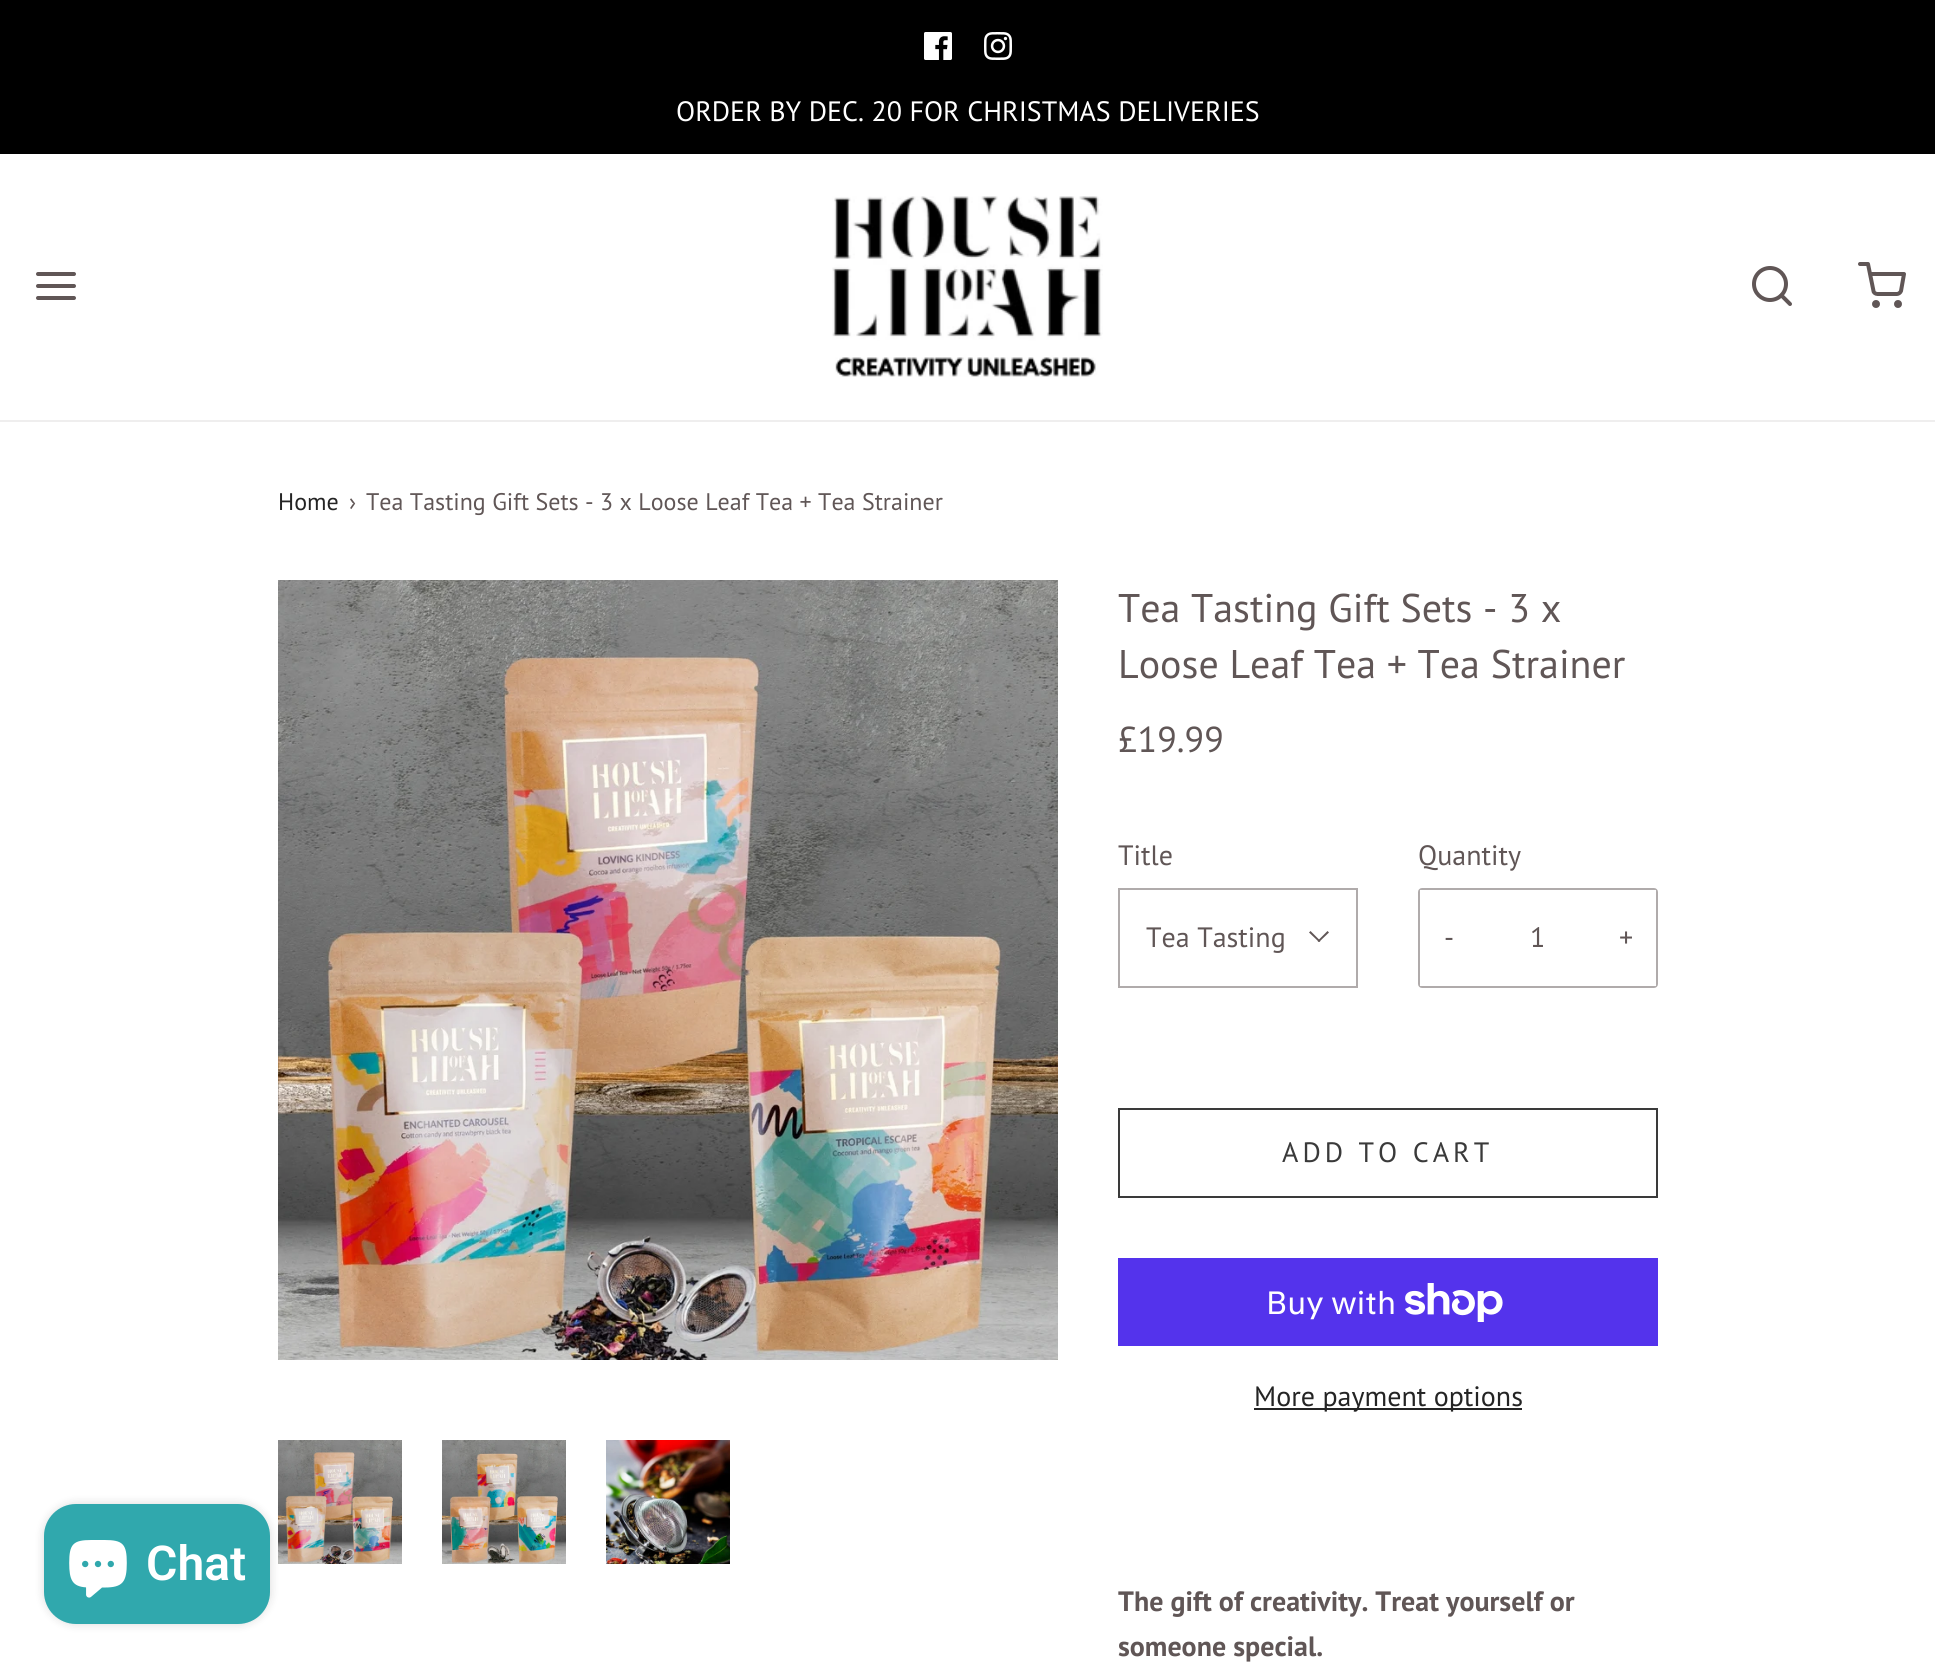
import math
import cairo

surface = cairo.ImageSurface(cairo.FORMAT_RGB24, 1935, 1666)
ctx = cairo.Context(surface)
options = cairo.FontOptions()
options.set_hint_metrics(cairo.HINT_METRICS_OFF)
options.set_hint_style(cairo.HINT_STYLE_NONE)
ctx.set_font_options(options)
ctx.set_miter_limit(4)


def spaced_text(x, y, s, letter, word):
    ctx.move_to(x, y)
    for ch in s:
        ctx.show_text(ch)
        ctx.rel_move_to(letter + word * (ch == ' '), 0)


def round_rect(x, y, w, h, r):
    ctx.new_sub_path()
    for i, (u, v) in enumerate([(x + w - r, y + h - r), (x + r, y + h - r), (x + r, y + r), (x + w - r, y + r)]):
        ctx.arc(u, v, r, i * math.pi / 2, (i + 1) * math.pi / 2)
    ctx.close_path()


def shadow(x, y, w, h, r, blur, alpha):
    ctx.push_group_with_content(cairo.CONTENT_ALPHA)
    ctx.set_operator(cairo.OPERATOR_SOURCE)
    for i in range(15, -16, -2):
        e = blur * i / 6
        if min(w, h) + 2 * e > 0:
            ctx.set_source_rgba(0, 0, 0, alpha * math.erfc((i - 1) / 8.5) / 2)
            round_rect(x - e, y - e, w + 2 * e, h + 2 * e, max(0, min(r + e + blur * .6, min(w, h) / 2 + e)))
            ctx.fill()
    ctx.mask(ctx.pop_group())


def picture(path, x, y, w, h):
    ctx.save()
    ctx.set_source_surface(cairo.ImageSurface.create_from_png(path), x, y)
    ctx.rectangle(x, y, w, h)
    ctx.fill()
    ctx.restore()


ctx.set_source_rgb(1, 1, 1)
ctx.paint()
picture("img6.png", 278, 1440, 124, 124)
ctx.set_source_rgb(0, 0, 0)
shadow(44, 1504, 226, 120, 32, 5, 0.15)
ctx.set_source_rgb(0.188, 0.659, 0.678)
round_rect(44, 1504, 226, 120, 32)
ctx.fill()
picture("img1.png", 69, 1540, 58, 58)
ctx.select_font_face("Roboto SemiBold")
ctx.set_font_size(48)
ctx.set_source_rgb(1, 1, 1)
ctx.move_to(146, 1580)
ctx.show_text("Chat")
ctx.set_source_rgb(0, 0, 0)
ctx.rectangle(0, 0, 1935, 154)
ctx.fill()
picture("img2.png", 924, 32, 28, 28)
picture("img3.png", 984, 32, 28, 28)
ctx.select_font_face("PT Sans")
ctx.set_font_size(28)
ctx.set_source_rgb(1, 1, 1)
ctx.move_to(676, 121)
ctx.show_text("ORDER BY DEC. 20 FOR CHRISTMAS DELIVERIES")
ctx.set_source_rgb(0.937, 0.933, 0.933)
ctx.rectangle(0, 420, 1935, 2)
ctx.fill()
ctx.new_path()
ctx.move_to(38, 286)
ctx.line_to(74, 286)
ctx.move_to(38, 274)
ctx.line_to(74, 274)
ctx.move_to(38, 298)
ctx.line_to(74, 298)
ctx.set_source_rgb(0.376, 0.337, 0.337)
ctx.set_line_width(4)
ctx.set_line_cap(cairo.LINE_CAP_ROUND)
ctx.set_line_join(cairo.LINE_JOIN_ROUND)
ctx.stroke()
picture("img4.png", 832, 196, 271, 181)
ctx.arc(1770, 284, 16, 0, 2 * math.pi)
ctx.set_line_cap(cairo.LINE_CAP_BUTT)
ctx.set_line_join(cairo.LINE_JOIN_MITER)
ctx.stroke()
ctx.new_path()
ctx.move_to(1790, 304)
ctx.line_to(1781.5, 295.5)
ctx.set_line_cap(cairo.LINE_CAP_ROUND)
ctx.set_line_join(cairo.LINE_JOIN_ROUND)
ctx.stroke()
ctx.arc(1876, 304, 2, 0, 2 * math.pi)
ctx.set_line_cap(cairo.LINE_CAP_BUTT)
ctx.set_line_join(cairo.LINE_JOIN_MITER)
ctx.stroke()
ctx.arc(1898, 304, 2, 0, 2 * math.pi)
ctx.stroke()
ctx.new_path()
ctx.move_to(1860, 264)
ctx.line_to(1868, 264)
ctx.line_to(1873.5, 291)
ctx.curve_to(1873.5, 292.5, 1875.5, 294, 1877.5, 294)
ctx.line_to(1897, 294)
ctx.curve_to(1898.5, 294, 1900.5, 292.5, 1901, 291)
ctx.line_to(1904, 274)
ctx.line_to(1870, 274)
ctx.set_line_cap(cairo.LINE_CAP_ROUND)
ctx.set_line_join(cairo.LINE_JOIN_ROUND)
ctx.stroke()
ctx.set_font_size(24)
ctx.set_source_rgb(0.141, 0.141, 0.141)
ctx.move_to(278, 510)
ctx.show_text("Home")
ctx.set_source_rgb(0.376, 0.337, 0.337)
ctx.move_to(349, 510)
ctx.show_text("›")
ctx.move_to(366, 510)
ctx.show_text("Tea Tasting Gift Sets - 3 x Loose Leaf Tea + Tea Strainer")
picture("img5.png", 278, 580, 780, 780)
picture("img7.png", 442, 1440, 124, 124)
picture("img8.png", 606, 1440, 124, 124)
ctx.set_font_size(40)
ctx.move_to(1118, 622)
ctx.show_text("Tea Tasting Gift Sets - 3 x")
ctx.move_to(1118, 678)
ctx.show_text("Loose Leaf Tea + Tea Strainer")
ctx.set_font_size(36)
ctx.move_to(1118, 752)
ctx.show_text("£19.99")
ctx.set_font_size(28)
ctx.move_to(1118, 865)
ctx.show_text("Title")
ctx.rectangle(1119, 889, 238, 98)
ctx.set_source_rgb(0.69, 0.671, 0.671)
ctx.set_line_width(2)
ctx.set_line_cap(cairo.LINE_CAP_BUTT)
ctx.set_line_join(cairo.LINE_JOIN_MITER)
ctx.stroke()
ctx.set_source_rgb(0.376, 0.337, 0.337)
ctx.move_to(1146, 947)
ctx.show_text("Tea Tasting")
ctx.new_path()
ctx.move_to(1327.5, 931)
ctx.line_to(1329, 932.5)
ctx.line_to(1319, 942)
ctx.line_to(1317.5, 941)
ctx.close_path()
ctx.fill()
ctx.new_path()
ctx.move_to(1310.5, 931)
ctx.line_to(1320.5, 941)
ctx.line_to(1319, 942)
ctx.line_to(1309, 932.5)
ctx.close_path()
ctx.fill()
ctx.move_to(1418, 865)
ctx.show_text("Quantity")
round_rect(1419, 889, 238, 98, 3)
ctx.set_source_rgb(0.69, 0.671, 0.671)
ctx.stroke()
ctx.set_source_rgb(1, 1, 1)
ctx.rectangle(1420, 890, 2, 96)
ctx.fill()
ctx.set_source_rgb(0.376, 0.337, 0.337)
ctx.move_to(1444, 947)
ctx.show_text("-")
ctx.move_to(1530, 947)
ctx.show_text("1")
ctx.set_source_rgb(1, 1, 1)
ctx.rectangle(1654, 890, 2, 96)
ctx.fill()
ctx.set_source_rgb(0.376, 0.337, 0.337)
ctx.move_to(1619, 947)
ctx.show_text("+")
ctx.rectangle(1119, 1109, 538, 88)
ctx.set_source_rgb(0.227, 0.227, 0.227)
ctx.stroke()
spaced_text(1282, 1162, "ADD TO CART", 4, 0)
ctx.set_source_rgb(0.329, 0.2, 0.922)
ctx.rectangle(1118, 1258, 540, 88)
ctx.fill()
ctx.select_font_face("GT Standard")
ctx.set_font_size(32)
ctx.set_source_rgb(1, 1, 1)
ctx.move_to(1266, 1314)
ctx.show_text("Buy with")
picture("img9.png", 1405, 1283, 98, 39)
ctx.set_source_rgb(0.141, 0.141, 0.141)
ctx.rectangle(1254, 1408, 268, 2)
ctx.fill()
ctx.select_font_face("PT Sans")
ctx.set_font_size(28)
ctx.move_to(1254, 1406)
ctx.show_text("More payment options")
ctx.select_font_face("PT Sans", cairo.FONT_SLANT_NORMAL, cairo.FONT_WEIGHT_BOLD)
ctx.set_source_rgb(0.376, 0.337, 0.337)
ctx.move_to(1118, 1611)
ctx.show_text("The gift of creativity. Treat yourself or")
ctx.move_to(1118, 1656)
ctx.show_text("someone special.")
surface.write_to_png("page.png")
